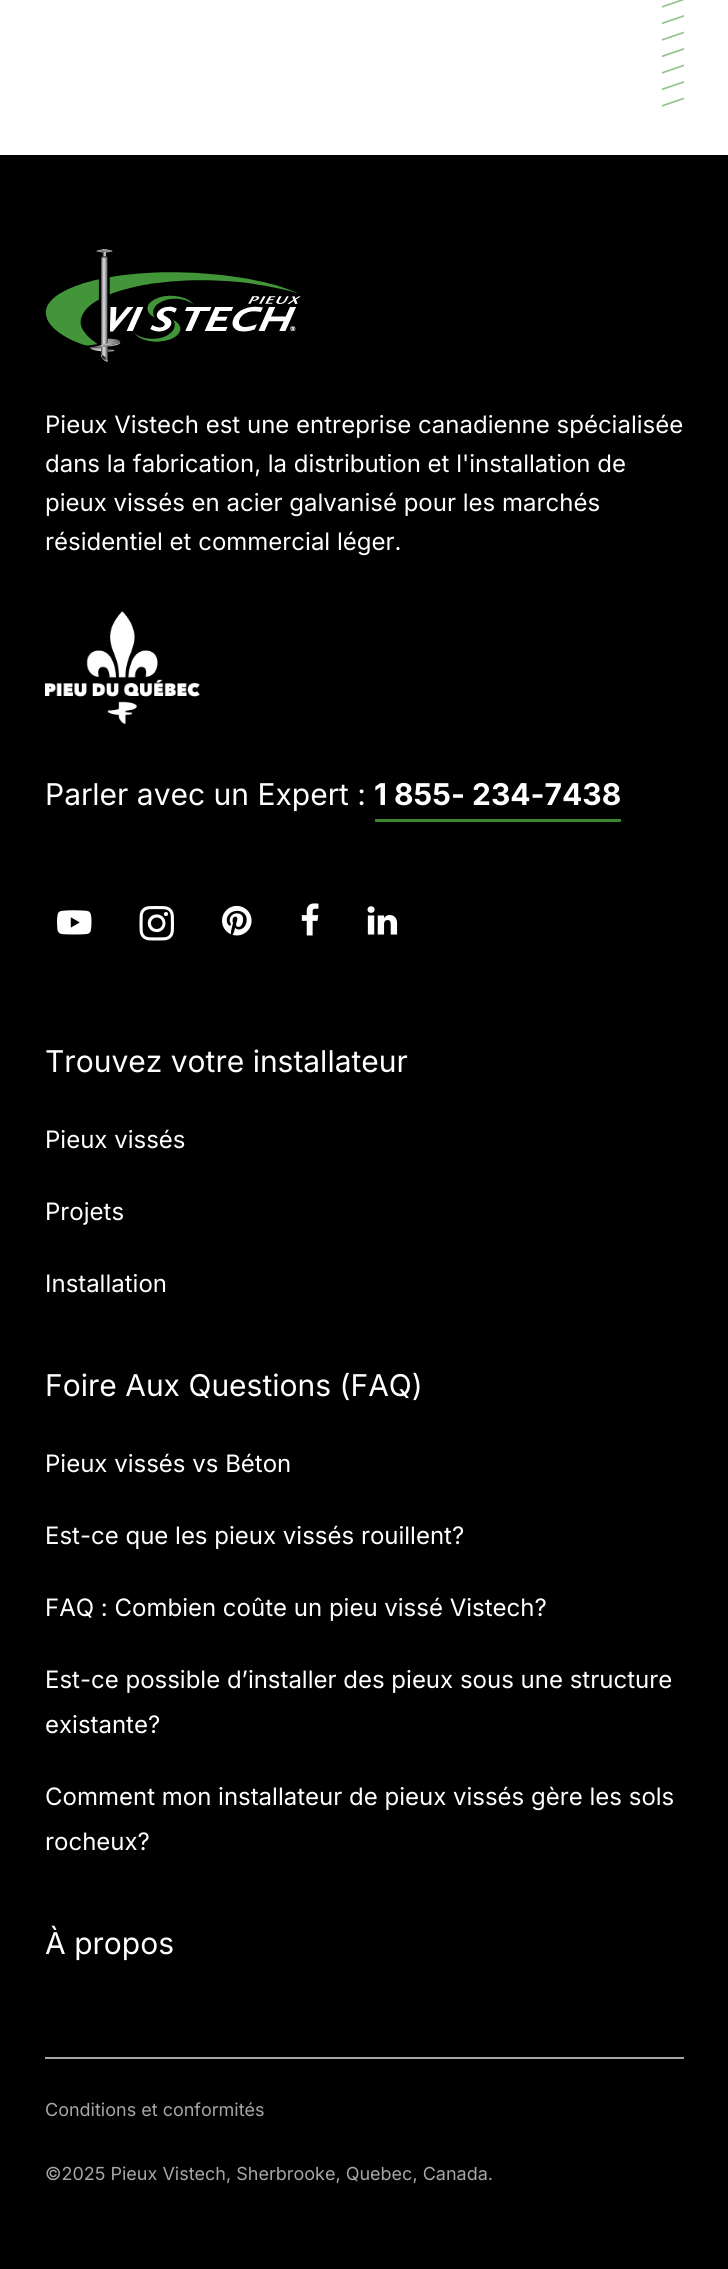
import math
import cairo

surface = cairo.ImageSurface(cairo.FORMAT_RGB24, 728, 2269)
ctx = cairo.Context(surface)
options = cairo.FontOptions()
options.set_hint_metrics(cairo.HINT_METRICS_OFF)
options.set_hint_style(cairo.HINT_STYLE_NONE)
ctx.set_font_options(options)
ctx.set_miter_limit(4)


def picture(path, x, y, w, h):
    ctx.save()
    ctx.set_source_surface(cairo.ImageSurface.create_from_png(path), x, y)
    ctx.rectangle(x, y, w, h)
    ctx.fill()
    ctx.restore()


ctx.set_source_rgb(1, 1, 1)
ctx.paint()
picture("img1.png", 662, 0, 22, 107)
ctx.set_source_rgb(0, 0, 0)
ctx.rectangle(0, 155, 728, 2114)
ctx.fill()
picture("img2.png", 45, 249, 256, 113)
ctx.select_font_face("Inter")
ctx.set_font_size(24)
ctx.set_source_rgb(1, 1, 1)
ctx.move_to(45, 433)
ctx.show_text("Pieux Vistech est une entreprise canadienne spécialisée")
ctx.move_to(45, 472)
ctx.show_text("dans la fabrication, la distribution et l'installation de")
ctx.move_to(45, 511)
ctx.show_text("pieux vissés en acier galvanisé pour les marchés")
ctx.move_to(45, 550)
ctx.show_text("résidentiel et commercial léger.")
picture("img3.png", 45, 611, 155, 113)
ctx.set_font_size(30)
ctx.move_to(45, 805)
ctx.show_text("Parler avec un Expert :")
ctx.select_font_face("Inter", cairo.FONT_SLANT_NORMAL, cairo.FONT_WEIGHT_BOLD)
ctx.move_to(374, 805)
ctx.show_text("1 855- 234-7438")
ctx.set_source_rgb(0.231, 0.525, 0.173)
ctx.rectangle(375, 819, 246, 3)
ctx.fill()
picture("img4.png", 57, 910, 35, 25)
picture("img5.png", 139, 906, 35, 35)
picture("img6.png", 222, 905, 30, 31)
picture("img7.png", 301, 903, 18, 33)
picture("img8.png", 367, 906, 31, 29)
ctx.select_font_face("Inter")
ctx.set_source_rgb(1, 1, 1)
ctx.move_to(45, 1072)
ctx.show_text("Trouvez votre installateur")
ctx.set_font_size(24)
ctx.move_to(45, 1148)
ctx.show_text("Pieux vissés")
ctx.move_to(45, 1220)
ctx.show_text("Projets")
ctx.move_to(45, 1292)
ctx.show_text("Installation")
ctx.set_font_size(30)
ctx.move_to(45, 1396)
ctx.show_text("Foire Aux Questions (FAQ)")
ctx.set_font_size(24)
ctx.move_to(45, 1472)
ctx.show_text("Pieux vissés vs Béton")
ctx.move_to(45, 1544)
ctx.show_text("Est-ce que les pieux vissés rouillent?")
ctx.move_to(45, 1616)
ctx.show_text("FAQ : Combien coûte un pieu vissé Vistech?")
ctx.move_to(45, 1688)
ctx.show_text("Est-ce possible d’installer des pieux sous une structure")
ctx.move_to(45, 1733)
ctx.show_text("existante?")
ctx.move_to(45, 1805)
ctx.show_text("Comment mon installateur de pieux vissés gère les sols")
ctx.move_to(45, 1850)
ctx.show_text("rocheux?")
ctx.set_font_size(30)
ctx.move_to(45, 1954)
ctx.show_text("À propos")
ctx.set_source_rgb(0.651, 0.651, 0.651)
ctx.rectangle(45, 2057, 639, 2)
ctx.fill()
ctx.set_font_size(18)
ctx.move_to(45, 2116)
ctx.show_text("Conditions et conformités")
ctx.move_to(45, 2180)
ctx.show_text("©2025 Pieux Vistech, Sherbrooke, Quebec, Canada.")
surface.write_to_png("page.png")
